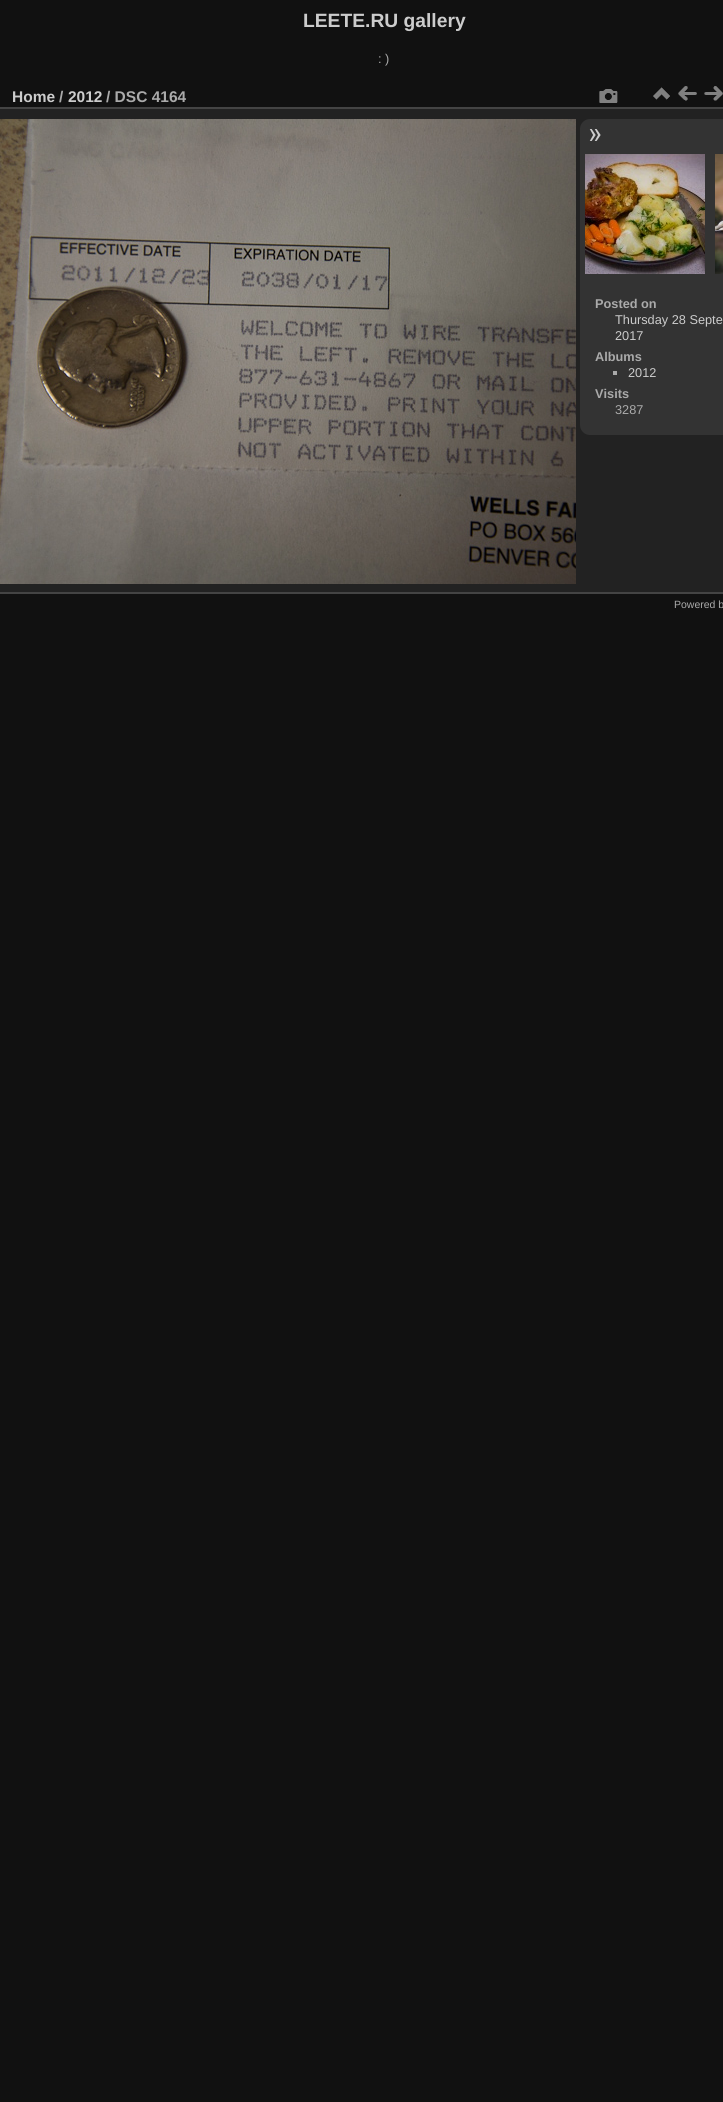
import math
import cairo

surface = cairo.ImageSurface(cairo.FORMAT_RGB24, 723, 2102)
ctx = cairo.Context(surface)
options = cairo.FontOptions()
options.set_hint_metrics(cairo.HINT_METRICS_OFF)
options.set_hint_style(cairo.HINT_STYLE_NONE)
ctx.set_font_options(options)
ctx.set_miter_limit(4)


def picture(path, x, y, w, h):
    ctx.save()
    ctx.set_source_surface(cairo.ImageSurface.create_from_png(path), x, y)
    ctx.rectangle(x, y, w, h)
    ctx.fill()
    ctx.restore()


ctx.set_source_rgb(0.067, 0.067, 0.067)
ctx.paint()
ctx.select_font_face("Liberation Sans", cairo.FONT_SLANT_NORMAL, cairo.FONT_WEIGHT_BOLD)
ctx.set_font_size(19.25)
ctx.set_source_rgb(0.8, 0.8, 0.8)
ctx.move_to(303, 27)
ctx.show_text("LEETE.RU gallery")
ctx.select_font_face("Liberation Sans")
ctx.set_font_size(12.75)
ctx.set_source_rgb(0.667, 0.667, 0.667)
ctx.move_to(378, 63)
ctx.show_text(": )")
ctx.set_source_rgb(0.133, 0.133, 0.133)
ctx.rectangle(0, 109, 723, 483)
ctx.fill()
ctx.set_source_rgb(0.267, 0.267, 0.267)
ctx.rectangle(0, 592, 723, 2)
ctx.fill()
ctx.rectangle(0, 107, 723, 2)
ctx.fill()
ctx.select_font_face("Liberation Sans", cairo.FONT_SLANT_NORMAL, cairo.FONT_WEIGHT_BOLD)
ctx.set_font_size(15.5)
ctx.set_source_rgb(0.8, 0.8, 0.8)
ctx.move_to(12, 102)
ctx.show_text("Home")
ctx.set_source_rgb(0.667, 0.667, 0.667)
ctx.move_to(59, 102)
ctx.show_text("/")
ctx.set_source_rgb(0.8, 0.8, 0.8)
ctx.move_to(68, 102)
ctx.show_text("2012")
ctx.set_source_rgb(0.667, 0.667, 0.667)
ctx.move_to(106, 102)
ctx.show_text("/ DSC 4164")
picture("img1.png", 599, 89, 19, 14)
picture("img2.png", 653, 87, 17, 13)
picture("img3.png", 678, 86, 19, 15)
picture("img4.png", 704, 86, 19, 15)
picture("img5.png", 0, 119, 576, 465)
ctx.set_source_rgb(0.2, 0.2, 0.2)
ctx.new_path()
ctx.move_to(590, 119)
ctx.line_to(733, 119)
ctx.line_to(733, 435)
ctx.line_to(590, 435)
ctx.curve_to(584.5, 435, 580, 430.5, 580, 425)
ctx.line_to(580, 129)
ctx.curve_to(580, 123.5, 584.5, 119, 590, 119)
ctx.close_path()
ctx.fill()
picture("img6.png", 589, 129, 12, 12)
picture("img7.png", 585, 154, 120, 120)
picture("img8.png", 715, 154, 8, 120)
ctx.set_font_size(12.75)
ctx.set_source_rgb(0.667, 0.667, 0.667)
ctx.move_to(595, 308)
ctx.show_text("Posted on")
ctx.select_font_face("Liberation Sans")
ctx.set_source_rgb(0.8, 0.8, 0.8)
ctx.move_to(615, 324)
ctx.show_text("Thursday 28 Septe")
ctx.move_to(615, 340)
ctx.show_text("2017")
ctx.select_font_face("Liberation Sans", cairo.FONT_SLANT_NORMAL, cairo.FONT_WEIGHT_BOLD)
ctx.set_source_rgb(0.667, 0.667, 0.667)
ctx.move_to(595, 361)
ctx.show_text("Albums")
ctx.rectangle(613, 371, 4, 4)
ctx.fill()
ctx.select_font_face("Liberation Sans")
ctx.set_source_rgb(0.8, 0.8, 0.8)
ctx.move_to(628, 377)
ctx.show_text("2012")
ctx.select_font_face("Liberation Sans", cairo.FONT_SLANT_NORMAL, cairo.FONT_WEIGHT_BOLD)
ctx.set_source_rgb(0.667, 0.667, 0.667)
ctx.move_to(595, 398)
ctx.show_text("Visits")
ctx.select_font_face("Liberation Sans")
ctx.move_to(615, 414)
ctx.show_text("3287")
ctx.set_font_size(10.5)
ctx.move_to(674, 608)
ctx.show_text("Powered b")
surface.write_to_png("page.png")
